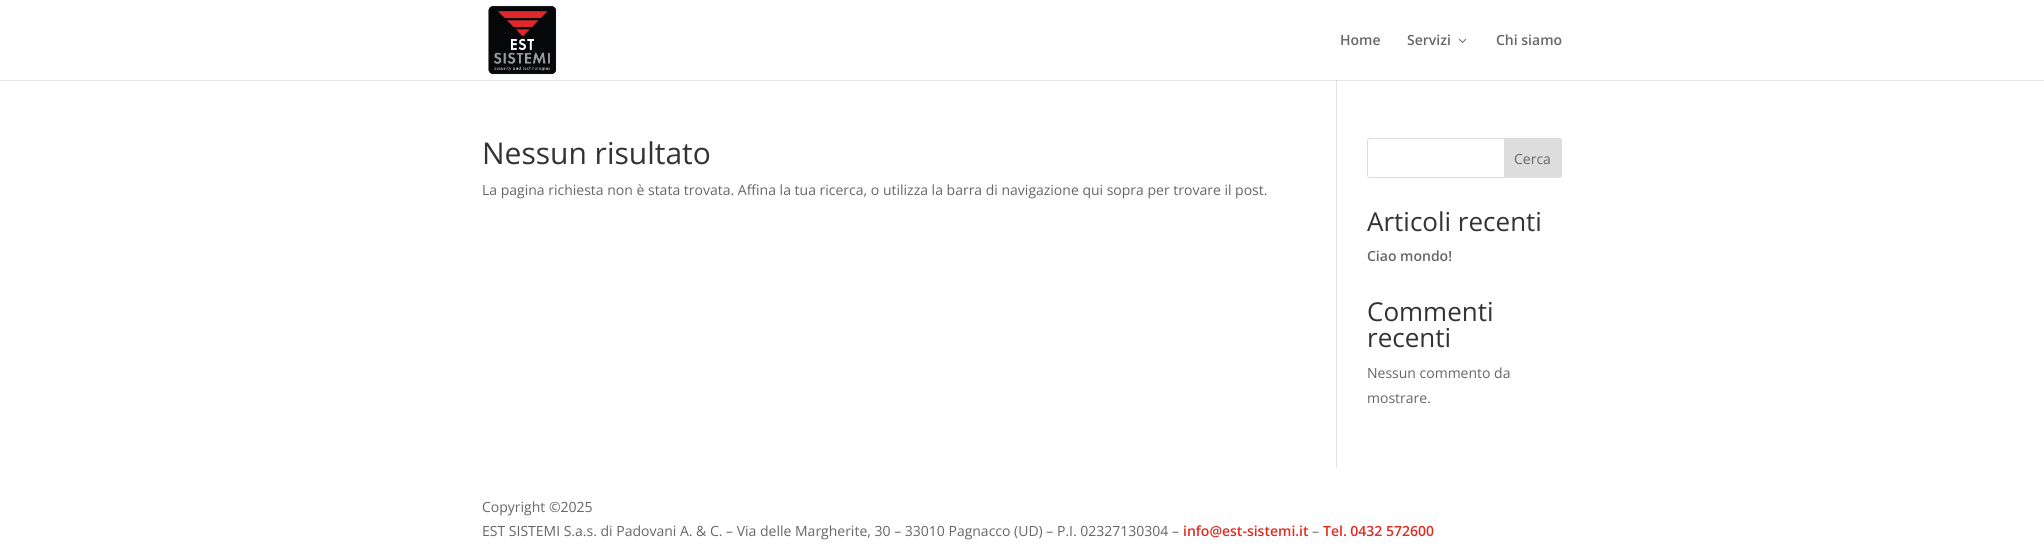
import math
import cairo

surface = cairo.ImageSurface(cairo.FORMAT_RGB24, 2044, 553)
ctx = cairo.Context(surface)
options = cairo.FontOptions()
options.set_hint_metrics(cairo.HINT_METRICS_OFF)
options.set_hint_style(cairo.HINT_STYLE_NONE)
ctx.set_font_options(options)
ctx.set_miter_limit(4)


def round_rect(x, y, w, h, r):
    ctx.new_sub_path()
    for i, (u, v) in enumerate([(x + w - r, y + h - r), (x + r, y + h - r), (x + r, y + r), (x + w - r, y + r)]):
        ctx.arc(u, v, r, i * math.pi / 2, (i + 1) * math.pi / 2)
    ctx.close_path()


def picture(path, x, y, w, h):
    ctx.save()
    ctx.set_source_surface(cairo.ImageSurface.create_from_png(path), x, y)
    ctx.rectangle(x, y, w, h)
    ctx.fill()
    ctx.restore()


ctx.set_source_rgb(1, 1, 1)
ctx.paint()
ctx.set_source_rgb(0.902, 0.902, 0.902)
ctx.rectangle(0, 80, 2044, 1)
ctx.fill()
picture("img1.png", 488, 5, 69, 70)
ctx.select_font_face("Open Sans SemiBold")
ctx.set_font_size(14)
ctx.set_source_rgb(0.4, 0.4, 0.4)
ctx.move_to(1340, 45)
ctx.show_text("Home")
ctx.move_to(1407, 45)
ctx.show_text("Servizi")
picture("img2.png", 1458, 38, 9, 5)
ctx.move_to(1496, 45)
ctx.show_text("Chi siamo")
ctx.set_source_rgb(0.886, 0.886, 0.886)
ctx.rectangle(1336, 80, 1, 388)
ctx.fill()
ctx.set_source_rgb(0.796, 0.796, 0.796)
ctx.rectangle(1336, 80, 1, 1)
ctx.fill()
ctx.select_font_face("Open Sans")
ctx.set_font_size(30)
ctx.set_source_rgb(0.2, 0.2, 0.2)
ctx.move_to(482, 164)
ctx.show_text("Nessun risultato")
ctx.set_font_size(14)
ctx.set_source_rgb(0.4, 0.4, 0.4)
ctx.move_to(482, 195)
ctx.show_text("La pagina richiesta non è stata trovata. Affina la tua ricerca, o utilizza la barra di navigazione qui sopra per trovare il post.")
round_rect(1367.5, 138.5, 194, 39, 2.5)
ctx.set_source_rgb(0.867, 0.867, 0.867)
ctx.set_line_width(1)
ctx.stroke()
ctx.new_path()
ctx.move_to(1504.5, 138.5)
ctx.line_to(1559, 138.5)
ctx.curve_to(1560.5, 138.5, 1561.5, 139.5, 1561.5, 141)
ctx.line_to(1561.5, 175)
ctx.curve_to(1561.5, 176.5, 1560.5, 177.5, 1559, 177.5)
ctx.line_to(1504.5, 177.5)
ctx.close_path()
ctx.fill_preserve()
ctx.stroke()
ctx.set_source_rgb(0.4, 0.4, 0.4)
ctx.move_to(1514, 164)
ctx.show_text("Cerca")
ctx.set_font_size(26)
ctx.set_source_rgb(0.2, 0.2, 0.2)
ctx.move_to(1367, 231)
ctx.show_text("Articoli recenti")
ctx.select_font_face("Open Sans SemiBold")
ctx.set_font_size(14)
ctx.set_source_rgb(0.4, 0.4, 0.4)
ctx.move_to(1367, 261)
ctx.show_text("Ciao mondo!")
ctx.select_font_face("Open Sans")
ctx.set_font_size(26)
ctx.set_source_rgb(0.2, 0.2, 0.2)
ctx.move_to(1367, 321)
ctx.show_text("Commenti")
ctx.move_to(1367, 347)
ctx.show_text("recenti")
ctx.set_font_size(14)
ctx.set_source_rgb(0.4, 0.4, 0.4)
ctx.move_to(1367, 378)
ctx.show_text("Nessun commento da")
ctx.move_to(1367, 403)
ctx.show_text("mostrare.")
ctx.move_to(482, 512)
ctx.show_text("Copyright ©2025")
ctx.move_to(482, 536)
ctx.show_text("EST SISTEMI S.a.s. di Padovani A. & C. – Via delle Margherite, 30 – 33010 Pagnacco (UD) – P.I. 02327130304 –")
ctx.select_font_face("Open Sans SemiBold")
ctx.set_source_rgb(0.878, 0.169, 0.125)
ctx.move_to(1183, 536)
ctx.show_text("info@est-sistemi.it")
ctx.select_font_face("Open Sans")
ctx.set_source_rgb(0.4, 0.4, 0.4)
ctx.move_to(1312, 536)
ctx.show_text("–")
ctx.select_font_face("Open Sans SemiBold")
ctx.set_source_rgb(0.878, 0.169, 0.125)
ctx.move_to(1323, 536)
ctx.show_text("Tel. 0432 572600")
surface.write_to_png("page.png")
